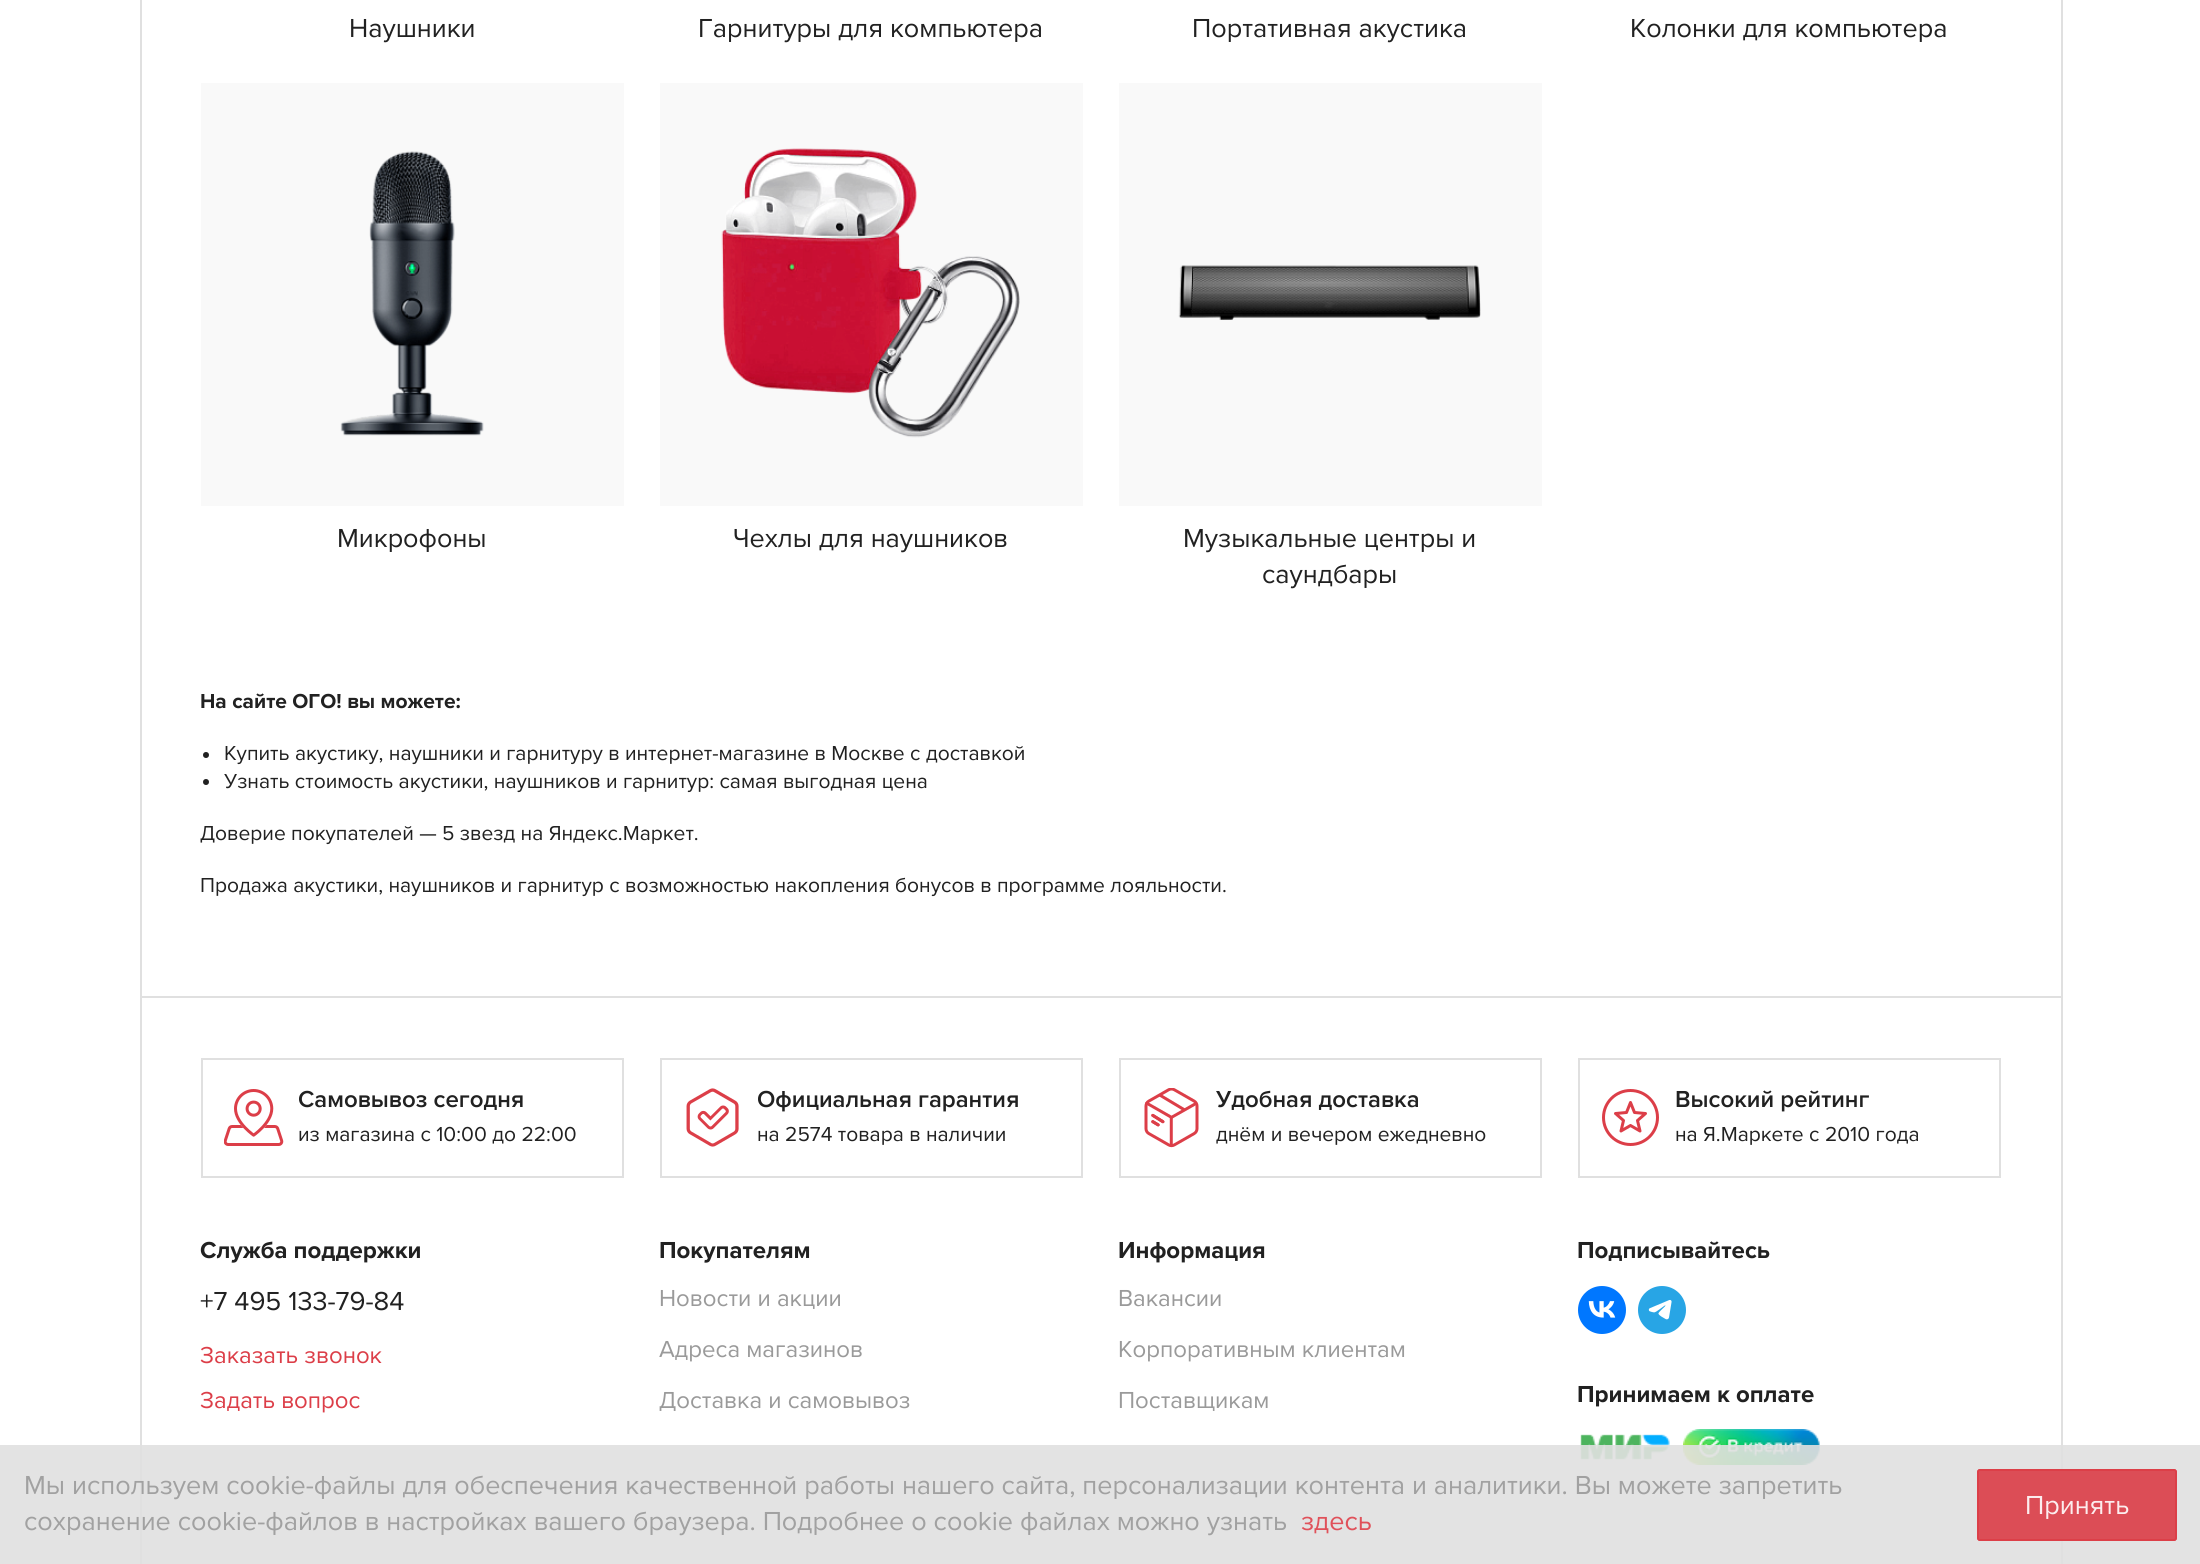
import math
import cairo

surface = cairo.ImageSurface(cairo.FORMAT_RGB24, 2200, 1564)
ctx = cairo.Context(surface)
options = cairo.FontOptions()
options.set_hint_metrics(cairo.HINT_METRICS_OFF)
options.set_hint_style(cairo.HINT_STYLE_NONE)
ctx.set_font_options(options)
ctx.set_miter_limit(4)


def round_rect(x, y, w, h, r):
    ctx.new_sub_path()
    for i, (u, v) in enumerate([(x + w - r, y + h - r), (x + r, y + h - r), (x + r, y + r), (x + w - r, y + r)]):
        ctx.arc(u, v, r, i * math.pi / 2, (i + 1) * math.pi / 2)
    ctx.close_path()


def picture(path, x, y, w, h):
    ctx.save()
    ctx.set_source_surface(cairo.ImageSurface.create_from_png(path), x, y)
    ctx.rectangle(x, y, w, h)
    ctx.fill()
    ctx.restore()


ctx.set_source_rgb(1, 1, 1)
ctx.paint()
ctx.set_source_rgb(0.129, 0.129, 0.129)
ctx.arc(206, 755, 3, 0, 2 * math.pi)
ctx.fill()
ctx.arc(206, 782, 3, 0, 2 * math.pi)
ctx.fill()
ctx.rectangle(141, -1, 1921, 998)
ctx.set_source_rgb(0.878, 0.878, 0.878)
ctx.stroke()
ctx.select_font_face("Proxima Nova")
ctx.set_font_size(27)
ctx.set_source_rgb(0.129, 0.129, 0.129)
ctx.move_to(349, 37)
ctx.show_text("Наушники")
ctx.move_to(698, 37)
ctx.show_text("Гарнитуры для компьютера")
ctx.move_to(1192, 37)
ctx.show_text("Портативная акустика")
ctx.move_to(1630, 37)
ctx.show_text("Колонки для компьютера")
ctx.set_source_rgb(0.973, 0.973, 0.973)
ctx.rectangle(201, 83, 423, 423)
ctx.fill()
picture("img1.png", 340, 151, 144, 285)
ctx.set_source_rgb(0.129, 0.129, 0.129)
ctx.move_to(337, 547)
ctx.show_text("Микрофоны")
ctx.set_source_rgb(0.973, 0.973, 0.973)
ctx.rectangle(660, 83, 423, 423)
ctx.fill()
picture("img2.png", 721, 148, 299, 290)
ctx.set_source_rgb(0.129, 0.129, 0.129)
ctx.move_to(733, 547)
ctx.show_text("Чехлы для наушников")
ctx.set_source_rgb(0.973, 0.973, 0.973)
ctx.rectangle(1119, 83, 423, 423)
ctx.fill()
picture("img3.png", 1178, 265, 303, 55)
ctx.set_source_rgb(0.129, 0.129, 0.129)
ctx.move_to(1183, 547)
ctx.show_text("Музыкальные центры и")
ctx.move_to(1262, 583)
ctx.show_text("саундбары")
ctx.select_font_face("Proxima Nova", cairo.FONT_SLANT_NORMAL, cairo.FONT_WEIGHT_BOLD)
ctx.set_font_size(21)
ctx.move_to(200, 708)
ctx.show_text("На сайте ОГО! вы можете:")
ctx.select_font_face("Proxima Nova")
ctx.move_to(224, 760)
ctx.show_text("Купить акустику, наушники и гарнитуру в интернет-магазине в Москве с доставкой")
ctx.move_to(224, 788)
ctx.show_text("Узнать стоимость акустики, наушников и гарнитур: самая выгодная цена")
ctx.move_to(200, 840)
ctx.show_text("Доверие покупателей — 5 звезд на Яндекс.Маркет.")
ctx.move_to(200, 892)
ctx.show_text("Продажа акустики, наушников и гарнитур с возможностью накопления бонусов в программе лояльности.")
picture("img7.png", 1578, 1286, 48, 48)
picture("img8.png", 1638, 1286, 48, 48)
picture("img9.png", 1580, 1434, 90, 26)
picture("img10.png", 1683, 1429, 137, 36)
ctx.rectangle(141, 997, 1921, 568)
ctx.set_source_rgb(0.878, 0.878, 0.878)
ctx.stroke()
ctx.rectangle(202, 1059, 421, 118)
ctx.stroke()
picture("img4.png", 224, 1089, 60, 57)
ctx.select_font_face("Proxima Nova SemiBold")
ctx.set_font_size(24)
ctx.set_source_rgb(0.129, 0.129, 0.129)
ctx.move_to(298, 1107)
ctx.show_text("Самовывоз сегодня")
ctx.select_font_face("Proxima Nova")
ctx.set_font_size(21)
ctx.move_to(298, 1141)
ctx.show_text("из магазина с 10:00 до 22:00")
ctx.rectangle(661, 1059, 421, 118)
ctx.set_source_rgb(0.878, 0.878, 0.878)
ctx.stroke()
picture("img5.png", 686, 1088, 53, 59)
ctx.select_font_face("Proxima Nova SemiBold")
ctx.set_font_size(24)
ctx.set_source_rgb(0.129, 0.129, 0.129)
ctx.move_to(757, 1107)
ctx.show_text("Официальная гарантия")
ctx.select_font_face("Proxima Nova")
ctx.set_font_size(21)
ctx.move_to(757, 1141)
ctx.show_text("на 2574 товара в наличии")
ctx.rectangle(1120, 1059, 421, 118)
ctx.set_source_rgb(0.878, 0.878, 0.878)
ctx.stroke()
picture("img6.png", 1144, 1088, 55, 60)
ctx.select_font_face("Proxima Nova SemiBold")
ctx.set_font_size(24)
ctx.set_source_rgb(0.129, 0.129, 0.129)
ctx.move_to(1216, 1107)
ctx.show_text("Удобная доставка")
ctx.select_font_face("Proxima Nova")
ctx.set_font_size(21)
ctx.move_to(1216, 1141)
ctx.show_text("днём и вечером ежедневно")
ctx.rectangle(1579, 1059, 421, 118)
ctx.set_source_rgb(0.878, 0.878, 0.878)
ctx.stroke()
ctx.arc(1630.5, 1117.5, 27, 0, 2 * math.pi)
ctx.set_source_rgb(0.863, 0.243, 0.282)
ctx.set_line_width(3)
ctx.stroke()
ctx.new_path()
ctx.move_to(1630.5, 1125.5)
ctx.line_to(1640, 1131)
ctx.line_to(1637.5, 1120.5)
ctx.line_to(1645.5, 1113.5)
ctx.line_to(1634.5, 1112.5)
ctx.line_to(1630.5, 1102.5)
ctx.line_to(1626.5, 1112.5)
ctx.line_to(1615.5, 1113.5)
ctx.line_to(1623.5, 1120.5)
ctx.line_to(1621, 1131)
ctx.close_path()
ctx.set_line_join(cairo.LINE_JOIN_ROUND)
ctx.stroke()
ctx.select_font_face("Proxima Nova SemiBold")
ctx.set_font_size(24)
ctx.set_source_rgb(0.129, 0.129, 0.129)
ctx.move_to(1675, 1107)
ctx.show_text("Высокий рейтинг")
ctx.select_font_face("Proxima Nova")
ctx.set_font_size(21)
ctx.move_to(1675, 1141)
ctx.show_text("на Я.Маркете с 2010 года")
ctx.select_font_face("Proxima Nova", cairo.FONT_SLANT_NORMAL, cairo.FONT_WEIGHT_BOLD)
ctx.set_font_size(24)
ctx.move_to(200, 1258)
ctx.show_text("Служба поддержки")
ctx.select_font_face("Proxima Nova")
ctx.set_font_size(27)
ctx.move_to(200, 1310)
ctx.show_text("+7 495 133-79-84")
ctx.set_font_size(24)
ctx.set_source_rgb(0.863, 0.243, 0.282)
ctx.move_to(200, 1363)
ctx.show_text("Заказать звонок")
ctx.move_to(200, 1408)
ctx.show_text("Задать вопрос")
ctx.select_font_face("Proxima Nova", cairo.FONT_SLANT_NORMAL, cairo.FONT_WEIGHT_BOLD)
ctx.set_source_rgb(0.129, 0.129, 0.129)
ctx.move_to(659, 1258)
ctx.show_text("Покупателям")
ctx.select_font_face("Proxima Nova")
ctx.set_source_rgb(0.604, 0.604, 0.604)
ctx.move_to(659, 1306)
ctx.show_text("Новости и акции")
ctx.move_to(659, 1357)
ctx.show_text("Адреса магазинов")
ctx.move_to(659, 1408)
ctx.show_text("Доставка и самовывоз")
ctx.select_font_face("Proxima Nova", cairo.FONT_SLANT_NORMAL, cairo.FONT_WEIGHT_BOLD)
ctx.set_source_rgb(0.129, 0.129, 0.129)
ctx.move_to(1118, 1258)
ctx.show_text("Информация")
ctx.select_font_face("Proxima Nova")
ctx.set_source_rgb(0.604, 0.604, 0.604)
ctx.move_to(1118, 1306)
ctx.show_text("Вакансии")
ctx.move_to(1118, 1357)
ctx.show_text("Корпоративным клиентам")
ctx.move_to(1118, 1408)
ctx.show_text("Поставщикам")
ctx.select_font_face("Proxima Nova", cairo.FONT_SLANT_NORMAL, cairo.FONT_WEIGHT_BOLD)
ctx.set_source_rgb(0.129, 0.129, 0.129)
ctx.move_to(1577, 1258)
ctx.show_text("Подписывайтесь")
ctx.move_to(1577, 1402)
ctx.show_text("Принимаем к оплате")
ctx.set_source_rgba(0.878, 0.878, 0.878, 0.9)
ctx.rectangle(0, 1445, 2200, 119)
ctx.fill()
ctx.select_font_face("Proxima Nova")
ctx.set_font_size(27)
ctx.set_source_rgb(0.631, 0.631, 0.631)
ctx.move_to(24, 1494)
ctx.show_text("Мы используем cookie-файлы для обеспечения качественной работы нашего сайта, персонализации контента и аналитики. Вы можете запретить")
ctx.move_to(24, 1530)
ctx.show_text("сохранение cookie-файлов в настройках вашего браузера. Подробнее о cookie файлах можно узнать")
ctx.set_source_rgb(0.878, 0.318, 0.353)
ctx.move_to(1301, 1530)
ctx.show_text("здесь")
ctx.set_source_rgba(0.863, 0.243, 0.282, 0.9)
round_rect(1977, 1469, 200, 72, 3)
ctx.fill()
round_rect(1978, 1470, 198, 70, 2)
ctx.set_line_width(2)
ctx.set_line_join(cairo.LINE_JOIN_MITER)
ctx.stroke()
ctx.set_source_rgb(0.988, 0.929, 0.933)
ctx.move_to(2025, 1514)
ctx.show_text("Принять")
surface.write_to_png("page.png")
